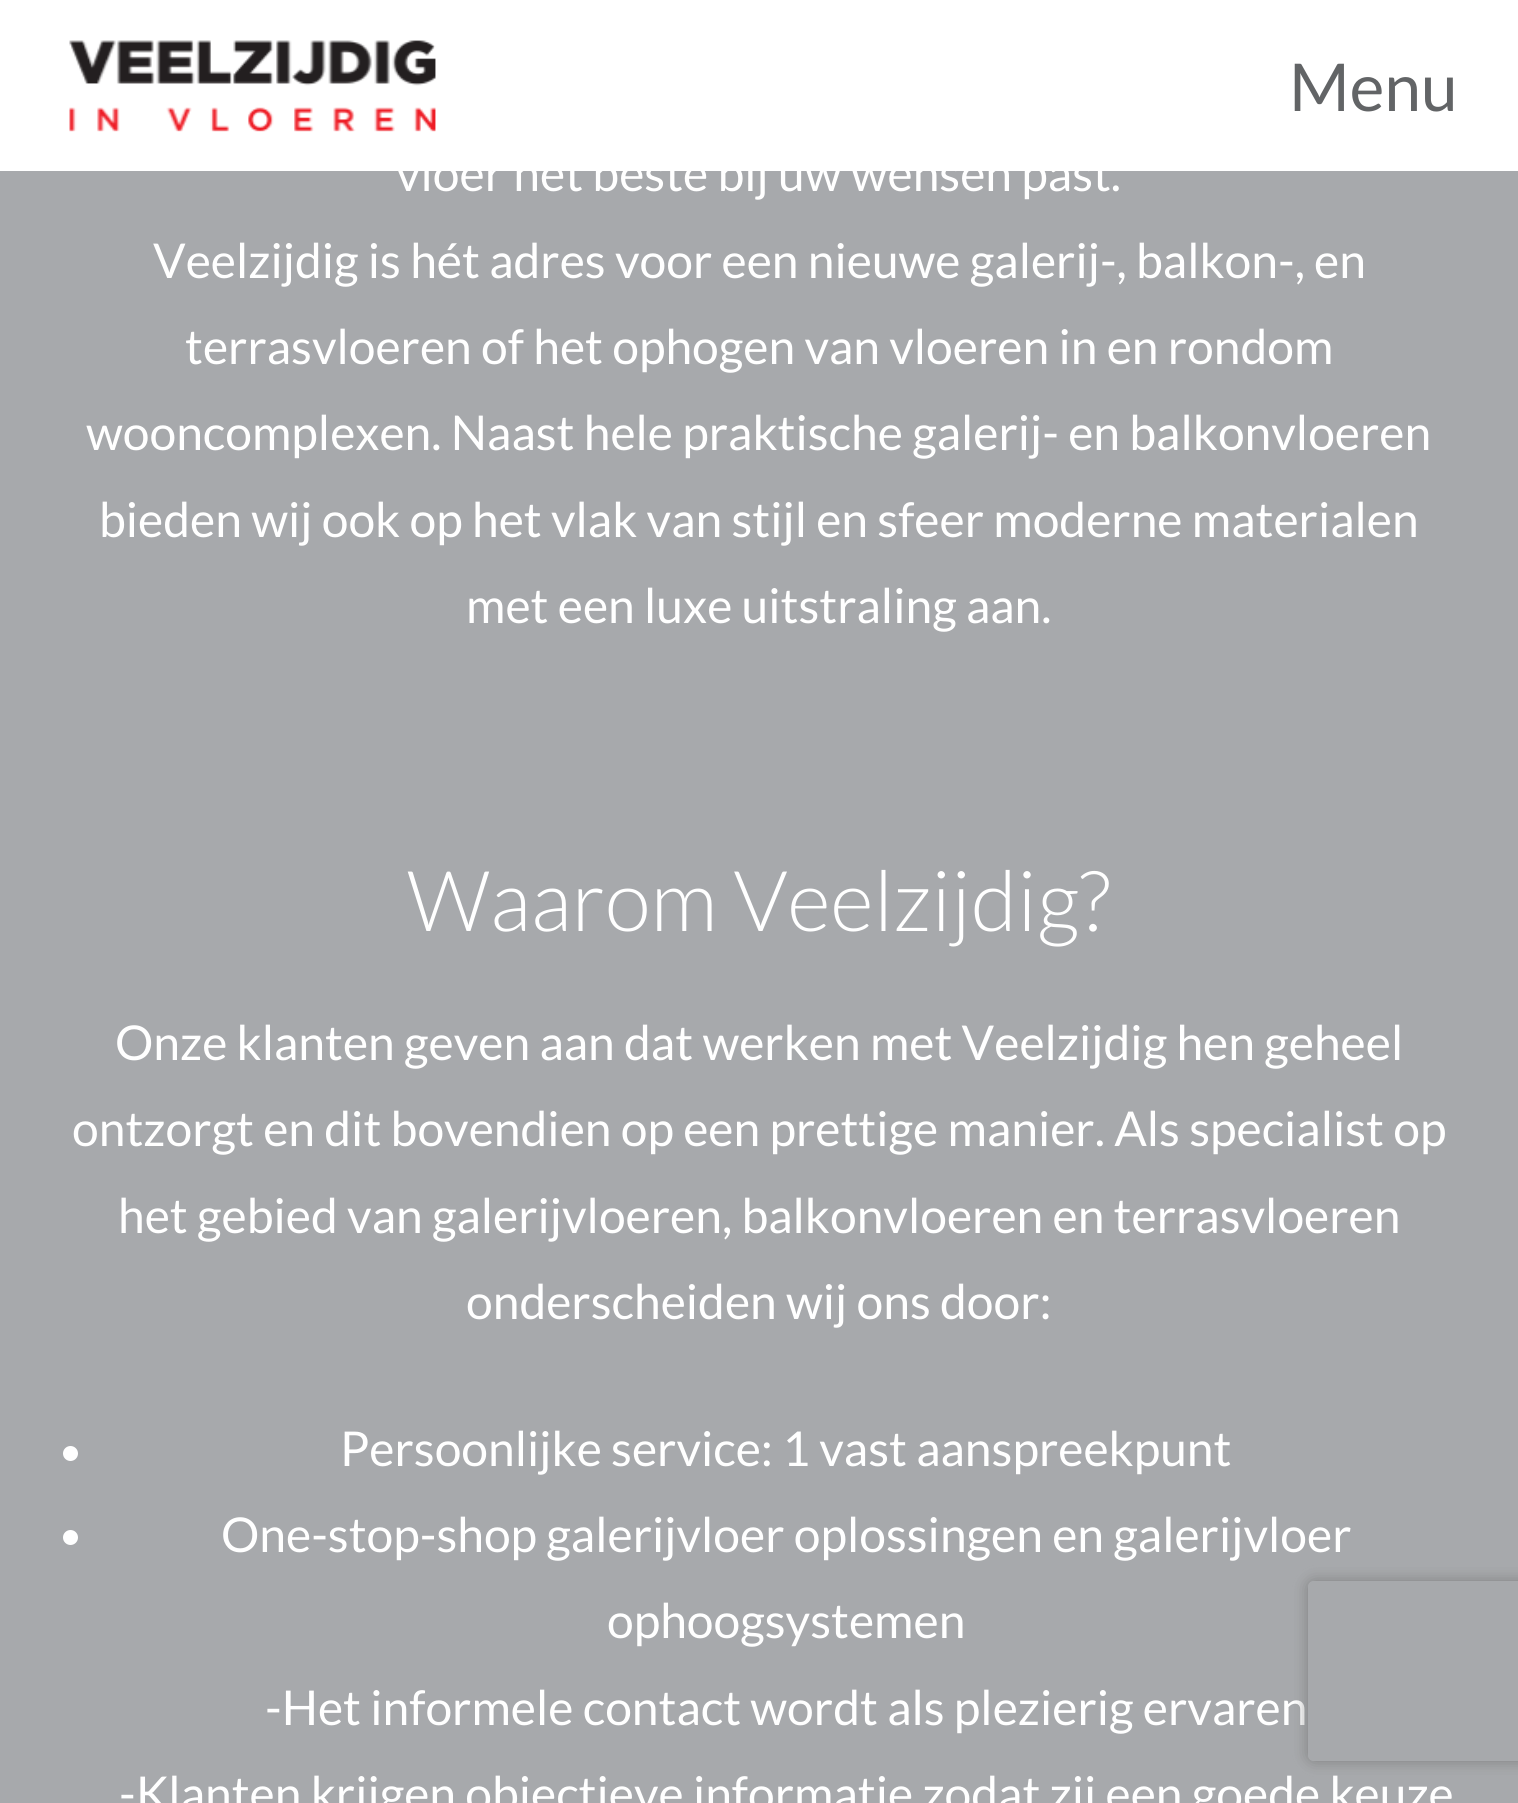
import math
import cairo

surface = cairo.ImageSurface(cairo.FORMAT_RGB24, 1518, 1803)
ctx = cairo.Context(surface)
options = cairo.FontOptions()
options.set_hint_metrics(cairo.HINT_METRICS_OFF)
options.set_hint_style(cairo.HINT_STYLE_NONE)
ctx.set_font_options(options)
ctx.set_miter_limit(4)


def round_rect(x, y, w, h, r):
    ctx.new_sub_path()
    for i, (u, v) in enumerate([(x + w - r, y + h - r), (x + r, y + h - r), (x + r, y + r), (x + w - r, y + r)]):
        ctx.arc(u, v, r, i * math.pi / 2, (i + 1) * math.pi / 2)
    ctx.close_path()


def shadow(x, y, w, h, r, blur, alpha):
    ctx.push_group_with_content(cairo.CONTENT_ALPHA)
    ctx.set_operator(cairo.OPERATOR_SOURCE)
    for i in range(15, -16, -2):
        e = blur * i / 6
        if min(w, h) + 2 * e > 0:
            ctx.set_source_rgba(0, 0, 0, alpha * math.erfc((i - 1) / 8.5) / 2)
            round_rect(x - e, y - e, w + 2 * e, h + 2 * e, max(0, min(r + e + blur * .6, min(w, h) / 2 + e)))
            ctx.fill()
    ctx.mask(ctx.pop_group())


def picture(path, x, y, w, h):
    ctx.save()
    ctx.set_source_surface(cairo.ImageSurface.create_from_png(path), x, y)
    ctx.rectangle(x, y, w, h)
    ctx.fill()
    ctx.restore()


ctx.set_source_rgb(0.655, 0.663, 0.675)
ctx.paint()
ctx.set_source_rgb(1, 1, 1)
ctx.rectangle(0, 0, 1518, 171)
ctx.fill()
picture("img1.png", 69, 40, 367, 92)
ctx.select_font_face("Lato")
ctx.set_font_size(66)
ctx.set_source_rgb(0.384, 0.392, 0.4)
ctx.move_to(1289, 111)
ctx.show_text("Menu")
ctx.set_font_size(48)
ctx.set_source_rgb(1, 1, 1)
ctx.move_to(396, 191)
ctx.show_text("vloer het beste bij uw wensen past.")
ctx.move_to(153, 278)
ctx.show_text("Veelzijdig is hét adres voor een nieuwe galerij-, balkon-, en")
ctx.move_to(185, 364)
ctx.show_text("terrasvloeren of het ophogen van vloeren in en rondom")
ctx.move_to(86, 450)
ctx.show_text("wooncomplexen. Naast hele praktische galerij- en balkonvloeren")
ctx.move_to(99, 537)
ctx.show_text("bieden wij ook op het vlak van stijl en sfeer moderne materialen")
ctx.move_to(466, 623)
ctx.show_text("met een luxe uitstraling aan.")
ctx.select_font_face("Lato Light")
ctx.set_font_size(84)
ctx.move_to(407, 931)
ctx.show_text("Waarom Veelzijdig?")
ctx.select_font_face("Lato")
ctx.set_font_size(48)
ctx.move_to(115, 1060)
ctx.show_text("Onze klanten geven aan dat werken met Veelzijdig hen geheel")
ctx.move_to(72, 1146)
ctx.show_text("ontzorgt en dit bovendien op een prettige manier. Als specialist op")
ctx.move_to(118, 1233)
ctx.show_text("het gebied van galerijvloeren, balkonvloeren en terrasvloeren")
ctx.move_to(466, 1319)
ctx.show_text("onderscheiden wij ons door:")
ctx.new_path()
ctx.arc(70.5, 1453.5, 7.5, 0, 2 * math.pi)
ctx.fill()
ctx.move_to(340, 1466)
ctx.show_text("Persoonlijke service: 1 vast aanspreekpunt")
ctx.new_path()
ctx.arc(70.5, 1537.5, 7.5, 0, 2 * math.pi)
ctx.fill()
ctx.move_to(221, 1552)
ctx.show_text("One-stop-shop galerijvloer oplossingen en galerijvloer")
ctx.move_to(607, 1638)
ctx.show_text("ophoogsystemen")
ctx.move_to(265, 1725)
ctx.show_text("-Het informele contact wordt als plezierig ervaren")
ctx.move_to(119, 1811)
ctx.show_text("-Klanten krijgen objectieve informatie zodat zij een goede keuze")
ctx.save()
ctx.set_fill_rule(cairo.FILL_RULE_EVEN_ODD)
ctx.new_path()
ctx.move_to(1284, 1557)
ctx.line_to(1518, 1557)
ctx.line_to(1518, 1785)
ctx.line_to(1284, 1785)
ctx.close_path()
ctx.move_to(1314, 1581)
ctx.line_to(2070, 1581)
ctx.curve_to(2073.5, 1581, 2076, 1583.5, 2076, 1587)
ctx.line_to(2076, 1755)
ctx.curve_to(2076, 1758.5, 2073.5, 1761, 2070, 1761)
ctx.line_to(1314, 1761)
ctx.curve_to(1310.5, 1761, 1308, 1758.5, 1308, 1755)
ctx.line_to(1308, 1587)
ctx.curve_to(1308, 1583.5, 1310.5, 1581, 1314, 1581)
ctx.close_path()
ctx.clip()
ctx.set_source_rgb(0.502, 0.502, 0.502)
shadow(1308, 1581, 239, 180, 6, 7.5, 1)
ctx.restore()
surface.write_to_png("page.png")
